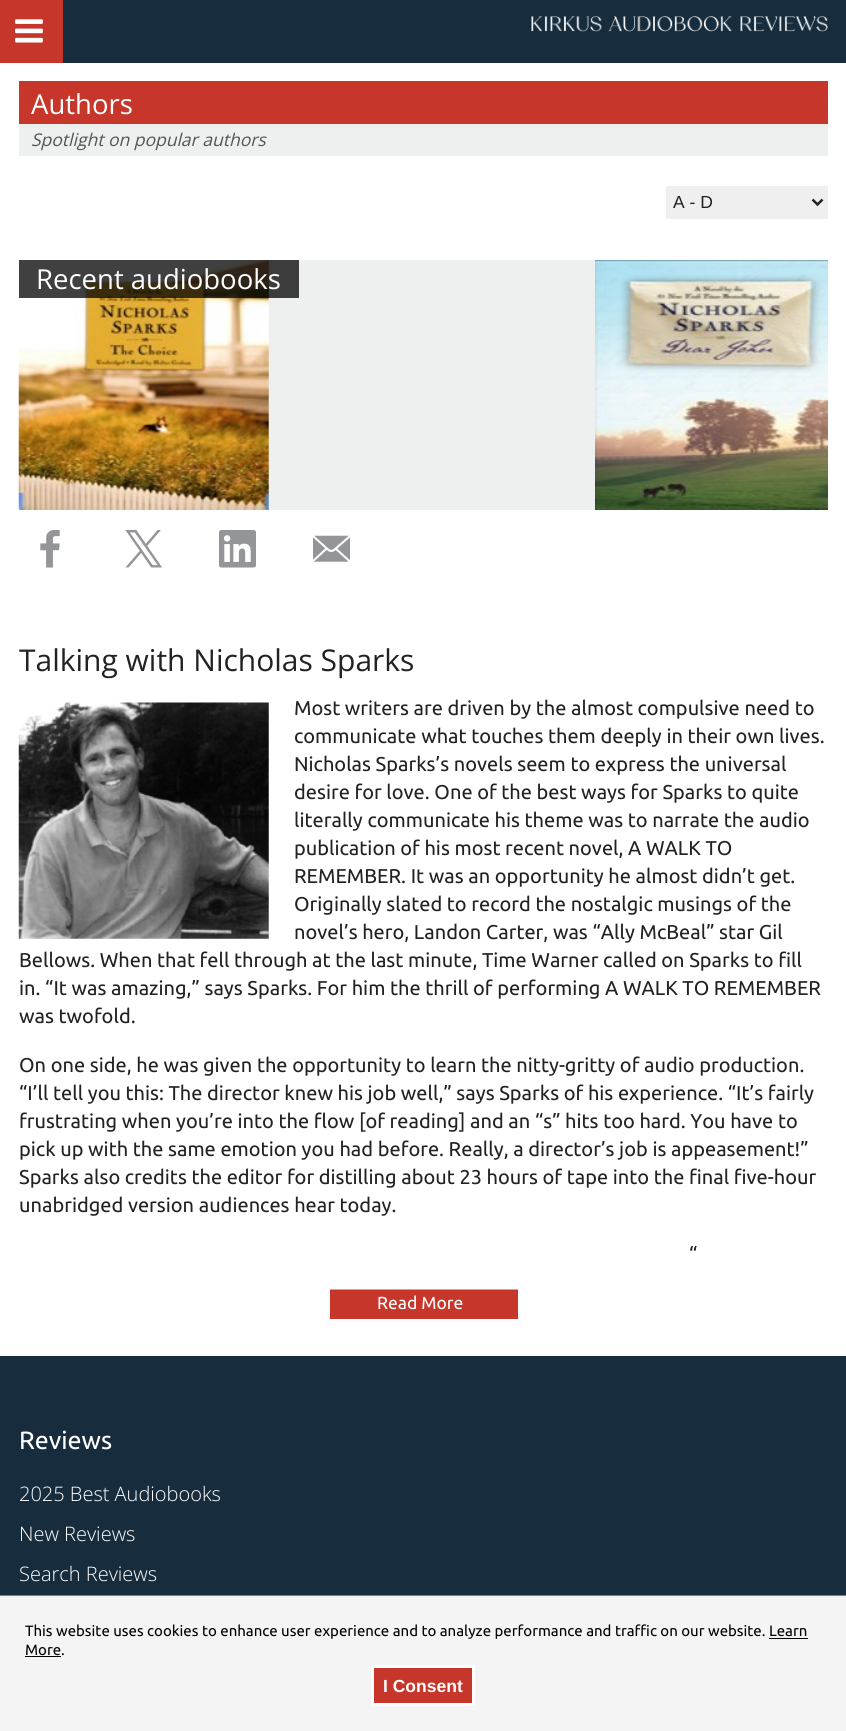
import math
import cairo

surface = cairo.ImageSurface(cairo.FORMAT_RGB24, 846, 1731)
ctx = cairo.Context(surface)
options = cairo.FontOptions()
options.set_hint_metrics(cairo.HINT_METRICS_OFF)
options.set_hint_style(cairo.HINT_STYLE_NONE)
ctx.set_font_options(options)
ctx.set_miter_limit(4)


def round_rect(x, y, w, h, r):
    ctx.new_sub_path()
    for i, (u, v) in enumerate([(x + w - r, y + h - r), (x + r, y + h - r), (x + r, y + r), (x + w - r, y + r)]):
        ctx.arc(u, v, r, i * math.pi / 2, (i + 1) * math.pi / 2)
    ctx.close_path()


def picture(path, x, y, w, h):
    ctx.save()
    ctx.set_source_surface(cairo.ImageSurface.create_from_png(path), x, y)
    ctx.rectangle(x, y, w, h)
    ctx.fill()
    ctx.restore()


ctx.set_source_rgb(1, 1, 1)
ctx.paint()
ctx.set_source_rgb(0.09, 0.176, 0.243)
ctx.rectangle(63, 0, 783, 63)
ctx.fill()
ctx.set_source_rgb(0.78, 0.212, 0.165)
ctx.rectangle(0, 0, 63, 63)
ctx.fill()
picture("img1.png", 15, 19, 28, 24)
picture("img2.png", 531, 16, 297, 16)
ctx.rectangle(19, 81, 809, 43)
ctx.fill()
ctx.select_font_face("Open Sans")
ctx.set_font_size(27.5)
ctx.set_source_rgb(1, 1, 1)
ctx.move_to(31, 114)
ctx.show_text("Authors")
ctx.set_source_rgb(0.933, 0.937, 0.937)
ctx.rectangle(19, 124, 809, 32)
ctx.fill()
ctx.select_font_face("Open Sans", cairo.FONT_SLANT_ITALIC)
ctx.set_font_size(17.5)
ctx.set_source_rgb(0.329, 0.329, 0.329)
ctx.move_to(31, 146)
ctx.show_text("Spotlight on popular authors")
ctx.set_source_rgb(0.937, 0.937, 0.937)
round_rect(666, 186, 162, 33, 1)
ctx.fill()
ctx.new_path()
ctx.move_to(812.5, 199.5)
ctx.line_to(817.5, 204.5)
ctx.line_to(822.5, 199.5)
ctx.set_source_rgb(0.133, 0.133, 0.133)
ctx.set_line_width(2.5)
ctx.stroke()
ctx.select_font_face("Liberation Sans")
ctx.move_to(673, 208)
ctx.show_text("A - D")
ctx.set_source_rgb(0.933, 0.937, 0.937)
ctx.rectangle(268, 260, 327, 250)
ctx.fill()
picture("img3.png", 18, 260, 251, 250)
picture("img4.png", 595, 260, 233, 250)
ctx.set_source_rgba(0, 0, 0, 0.75)
ctx.rectangle(19, 260, 280, 38)
ctx.fill()
ctx.select_font_face("Open Sans")
ctx.set_font_size(27.5)
ctx.set_source_rgb(1, 1, 1)
ctx.move_to(36, 289)
ctx.show_text("Recent audiobooks")
picture("img5.png", 40, 530, 20, 38)
picture("img6.png", 125, 530, 37, 38)
picture("img7.png", 219, 530, 37, 38)
picture("img8.png", 313, 535, 37, 27)
ctx.set_font_size(30)
ctx.set_source_rgb(0.133, 0.133, 0.133)
ctx.move_to(19, 671)
ctx.show_text("Talking with Nicholas Sparks")
ctx.select_font_face("Ubuntu")
ctx.set_font_size(20)
ctx.move_to(294, 715)
ctx.show_text("Most writers are driven by the almost compulsive need to")
ctx.move_to(294, 743)
ctx.show_text("communicate what touches them deeply in their own lives.")
ctx.move_to(294, 771)
ctx.show_text("Nicholas Sparks’s novels seem to express the universal")
ctx.move_to(294, 799)
ctx.show_text("desire for love. One of the best ways for Sparks to quite")
ctx.move_to(294, 827)
ctx.show_text("literally communicate his theme was to narrate the audio")
ctx.move_to(294, 855)
ctx.show_text("publication of his most recent novel, A WALK TO")
ctx.move_to(294, 883)
ctx.show_text("REMEMBER. It was an opportunity he almost didn’t get.")
ctx.move_to(294, 911)
ctx.show_text("Originally slated to record the nostalgic musings of the")
ctx.move_to(294, 939)
ctx.show_text("novel’s hero, Landon Carter, was “Ally McBeal” star Gil")
ctx.move_to(19, 967)
ctx.show_text("Bellows. When that fell through at the last minute, Time Warner called on Sparks to fill")
ctx.move_to(19, 995)
ctx.show_text("in. “It was amazing,” says Sparks. For him the thrill of performing A WALK TO REMEMBER")
ctx.move_to(19, 1023)
ctx.show_text("was twofold.")
picture("img9.png", 18, 702, 251, 237)
ctx.move_to(19, 1072)
ctx.show_text("On one side, he was given the opportunity to learn the nitty-gritty of audio production.")
ctx.move_to(19, 1100)
ctx.show_text("“I’ll tell you this: The director knew his job well,” says Sparks of his experience. “It’s fairly")
ctx.move_to(19, 1128)
ctx.show_text("frustrating when you’re into the flow [of reading] and an “s” hits too hard. You have to")
ctx.move_to(19, 1156)
ctx.show_text("pick up with the same emotion you had before. Really, a director’s job is appeasement!”")
ctx.move_to(19, 1184)
ctx.show_text("Sparks also credits the editor for distilling about 23 hours of tape into the final five-hour")
ctx.move_to(19, 1212)
ctx.show_text("unabridged version audiences hear today.")
ctx.move_to(689, 1261)
ctx.show_text("“")
ctx.set_source_rgb(0.78, 0.212, 0.165)
ctx.rectangle(330, 1290, 188, 29)
ctx.fill()
ctx.set_source_rgb(0.89, 0.608, 0.584)
ctx.rectangle(330, 1289, 188, 1)
ctx.fill()
ctx.set_font_size(17.5)
ctx.set_source_rgb(1, 1, 1)
ctx.move_to(377, 1309)
ctx.show_text("Read More")
ctx.set_source_rgb(0.09, 0.176, 0.243)
ctx.rectangle(0, 1356, 846, 239)
ctx.fill()
ctx.set_font_size(25)
ctx.set_source_rgb(1, 1, 1)
ctx.move_to(19, 1449)
ctx.show_text("Reviews")
ctx.select_font_face("Open Sans Light")
ctx.set_font_size(20)
ctx.move_to(19, 1501)
ctx.show_text("2025 Best Audiobooks")
ctx.move_to(19, 1541)
ctx.show_text("New Reviews")
ctx.move_to(19, 1581)
ctx.show_text("Search Reviews")
ctx.set_source_rgb(0.957, 0.957, 0.957)
ctx.rectangle(0, 1596, 846, 135)
ctx.fill()
ctx.set_source_rgb(0.502, 0.502, 0.502)
ctx.rectangle(0, 1595, 846, 1)
ctx.fill()
ctx.select_font_face("Ubuntu")
ctx.set_font_size(15)
ctx.set_source_rgb(0, 0, 0)
ctx.move_to(25, 1636)
ctx.show_text("This website uses cookies to enhance user experience and to analyze performance and traffic on our website. Learn")
ctx.move_to(25, 1655)
ctx.show_text("More.")
ctx.rectangle(769, 1638, 39, 1)
ctx.fill()
ctx.rectangle(25, 1656, 36, 1)
ctx.fill()
ctx.set_source_rgb(0.78, 0.212, 0.165)
ctx.rectangle(372.5, 1666.5, 101, 38)
ctx.fill_preserve()
ctx.set_source_rgb(1, 1, 1)
ctx.set_line_width(3)
ctx.stroke()
ctx.select_font_face("Liberation Sans", cairo.FONT_SLANT_NORMAL, cairo.FONT_WEIGHT_BOLD)
ctx.set_font_size(17.5)
ctx.move_to(383, 1692)
ctx.show_text("I Consent")
surface.write_to_png("page.png")
